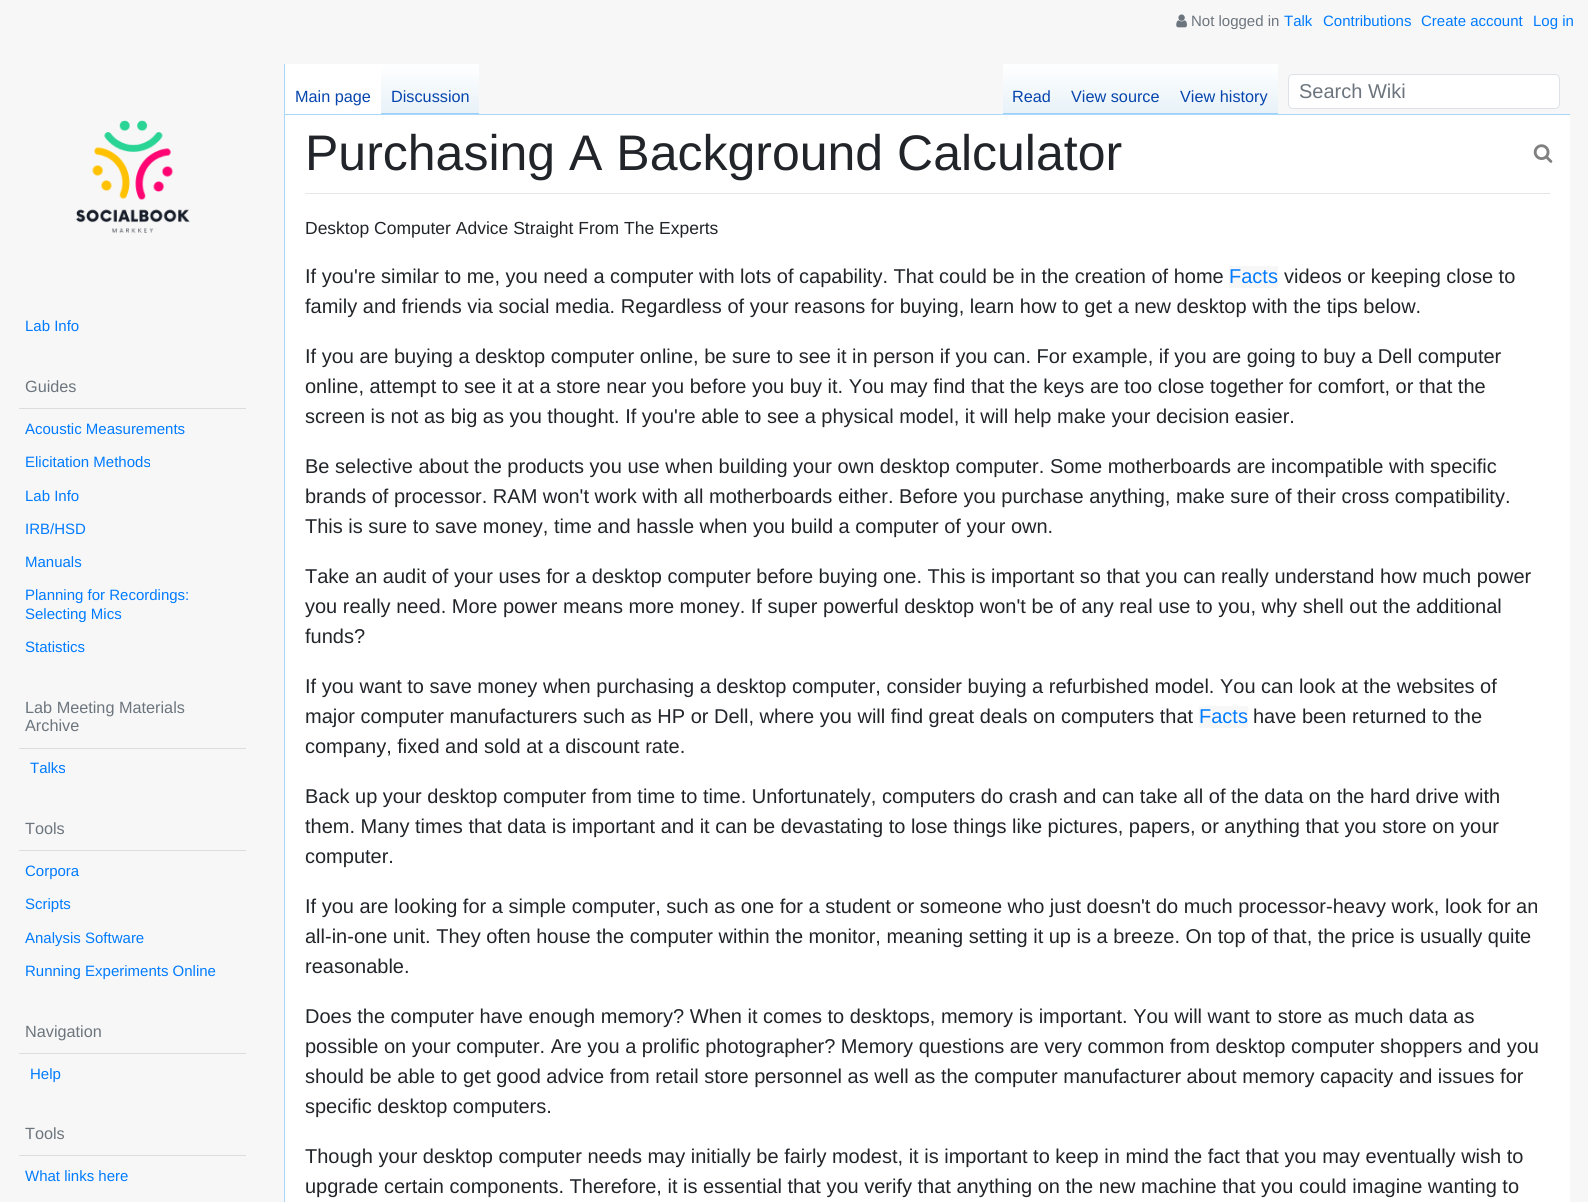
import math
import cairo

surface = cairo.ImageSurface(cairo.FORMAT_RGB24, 1588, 1202)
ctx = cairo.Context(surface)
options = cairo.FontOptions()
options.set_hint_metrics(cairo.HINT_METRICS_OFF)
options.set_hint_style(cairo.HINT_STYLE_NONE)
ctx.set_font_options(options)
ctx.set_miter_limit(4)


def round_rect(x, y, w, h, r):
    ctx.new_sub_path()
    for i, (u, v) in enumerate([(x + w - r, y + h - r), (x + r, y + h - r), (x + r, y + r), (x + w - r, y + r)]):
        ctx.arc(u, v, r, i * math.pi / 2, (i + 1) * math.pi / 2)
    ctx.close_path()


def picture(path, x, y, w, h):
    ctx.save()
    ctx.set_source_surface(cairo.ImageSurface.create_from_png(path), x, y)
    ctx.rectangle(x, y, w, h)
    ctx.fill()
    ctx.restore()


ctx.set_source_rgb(0.965, 0.965, 0.965)
ctx.paint()
picture("img1.png", 1176, 14, 11, 14)
ctx.select_font_face("Liberation Sans")
ctx.set_font_size(15)
ctx.set_source_rgb(0.424, 0.459, 0.49)
ctx.move_to(1191, 26)
ctx.show_text("Not logged in")
ctx.set_source_rgb(0, 0.482, 1)
ctx.move_to(1284, 26)
ctx.show_text("Talk")
ctx.move_to(1323, 26)
ctx.show_text("Contributions")
ctx.move_to(1421, 26)
ctx.show_text("Create account")
ctx.move_to(1533, 26)
ctx.show_text("Log in")
picture("img2.png", 76, 120, 114, 113)
ctx.move_to(25, 331)
ctx.show_text("Lab Info")
ctx.set_font_size(16.25)
ctx.set_source_rgb(0.424, 0.459, 0.49)
ctx.move_to(25, 392)
ctx.show_text("Guides")
ctx.set_source_rgb(0.867, 0.867, 0.867)
ctx.rectangle(19, 408, 227, 1)
ctx.fill()
ctx.set_font_size(15)
ctx.set_source_rgb(0, 0.482, 1)
ctx.move_to(25, 434)
ctx.show_text("Acoustic Measurements")
ctx.move_to(25, 467)
ctx.show_text("Elicitation Methods")
ctx.move_to(25, 501)
ctx.show_text("Lab Info")
ctx.move_to(25, 534)
ctx.show_text("IRB/HSD")
ctx.move_to(25, 567)
ctx.show_text("Manuals")
ctx.move_to(25, 600)
ctx.show_text("Planning for Recordings:")
ctx.move_to(25, 619)
ctx.show_text("Selecting Mics")
ctx.move_to(25, 652)
ctx.show_text("Statistics")
ctx.set_font_size(16.25)
ctx.set_source_rgb(0.424, 0.459, 0.49)
ctx.move_to(25, 713)
ctx.show_text("Lab Meeting Materials")
ctx.move_to(25, 731)
ctx.show_text("Archive")
ctx.set_source_rgb(0.867, 0.867, 0.867)
ctx.rectangle(19, 748, 227, 1)
ctx.fill()
ctx.set_font_size(15)
ctx.set_source_rgb(0, 0.482, 1)
ctx.move_to(30, 773)
ctx.show_text("Talks")
ctx.set_font_size(16.25)
ctx.set_source_rgb(0.424, 0.459, 0.49)
ctx.move_to(25, 834)
ctx.show_text("Tools")
ctx.set_source_rgb(0.867, 0.867, 0.867)
ctx.rectangle(19, 850, 227, 1)
ctx.fill()
ctx.set_font_size(15)
ctx.set_source_rgb(0, 0.482, 1)
ctx.move_to(25, 876)
ctx.show_text("Corpora")
ctx.move_to(25, 909)
ctx.show_text("Scripts")
ctx.move_to(25, 943)
ctx.show_text("Analysis Software")
ctx.move_to(25, 976)
ctx.show_text("Running Experiments Online")
ctx.set_font_size(16.25)
ctx.set_source_rgb(0.424, 0.459, 0.49)
ctx.move_to(25, 1037)
ctx.show_text("Navigation")
ctx.set_source_rgb(0.867, 0.867, 0.867)
ctx.rectangle(19, 1053, 227, 1)
ctx.fill()
ctx.set_font_size(15)
ctx.set_source_rgb(0, 0.482, 1)
ctx.move_to(30, 1079)
ctx.show_text("Help")
ctx.set_font_size(16.25)
ctx.set_source_rgb(0.424, 0.459, 0.49)
ctx.move_to(25, 1139)
ctx.show_text("Tools")
ctx.set_source_rgb(0.867, 0.867, 0.867)
ctx.rectangle(19, 1155, 227, 1)
ctx.fill()
ctx.set_font_size(15)
ctx.set_source_rgb(0, 0.482, 1)
ctx.move_to(25, 1181)
ctx.show_text("What links here")
ctx.set_source_rgb(0.655, 0.843, 0.976)
ctx.rectangle(284, 114, 1286, 1)
ctx.fill()
ctx.rectangle(284, 64, 1, 51)
ctx.fill()
ctx.set_source_rgb(1, 1, 1)
ctx.rectangle(285, 64, 96, 50)
ctx.fill()
ctx.set_font_size(16.25)
ctx.set_source_rgb(0.024, 0.271, 0.678)
ctx.move_to(295, 102)
ctx.show_text("Main page")
gradient = cairo.LinearGradient(430, 114, 430, 64)
gradient.add_color_stop_rgba(0, 0.467, 0.757, 0.965, 1)
gradient.add_color_stop_rgba(0.03, 0.91, 0.949, 0.973, 1)
gradient.add_color_stop_rgba(1, 1, 1, 1, 1)
ctx.set_source(gradient)
ctx.rectangle(381, 64, 98, 50)
ctx.fill()
ctx.set_source_rgb(0.024, 0.271, 0.678)
ctx.move_to(391, 102)
ctx.show_text("Discussion")
gradient = cairo.LinearGradient(1032, 114, 1032, 64)
gradient.add_color_stop_rgba(0, 0.467, 0.757, 0.965, 1)
gradient.add_color_stop_rgba(0.03, 0.91, 0.949, 0.973, 1)
gradient.add_color_stop_rgba(1, 1, 1, 1, 1)
ctx.set_source(gradient)
ctx.rectangle(1003, 64, 58, 50)
ctx.fill()
ctx.set_source_rgb(0.024, 0.271, 0.678)
ctx.move_to(1012, 102)
ctx.show_text("Read")
gradient = cairo.LinearGradient(1116, 114, 1116, 64)
gradient.add_color_stop_rgba(0, 0.467, 0.757, 0.965, 1)
gradient.add_color_stop_rgba(0.03, 0.91, 0.949, 0.973, 1)
gradient.add_color_stop_rgba(1, 1, 1, 1, 1)
ctx.set_source(gradient)
ctx.rectangle(1061, 64, 109, 50)
ctx.fill()
ctx.set_source_rgb(0.024, 0.271, 0.678)
ctx.move_to(1071, 102)
ctx.show_text("View source")
gradient = cairo.LinearGradient(1224, 114, 1224, 64)
gradient.add_color_stop_rgba(0, 0.467, 0.757, 0.965, 1)
gradient.add_color_stop_rgba(0.03, 0.91, 0.949, 0.973, 1)
gradient.add_color_stop_rgba(1, 1, 1, 1, 1)
ctx.set_source(gradient)
ctx.rectangle(1170, 64, 108, 50)
ctx.fill()
ctx.set_source_rgb(0.024, 0.271, 0.678)
ctx.move_to(1180, 102)
ctx.show_text("View history")
ctx.set_source_rgb(1, 1, 1)
round_rect(1288.5, 74.5, 271, 34, 4.5)
ctx.fill_preserve()
ctx.set_source_rgb(0.871, 0.886, 0.902)
ctx.set_line_width(1)
ctx.stroke()
ctx.set_font_size(20)
ctx.set_source_rgb(0.424, 0.459, 0.49)
ctx.move_to(1299, 98)
ctx.show_text("Search Wiki")
ctx.set_source_rgb(1, 1, 1)
ctx.rectangle(285, 115, 1285, 1087)
ctx.fill()
picture("img3.png", 1533, 144, 20, 19)
ctx.set_source_rgb(0.655, 0.843, 0.976)
ctx.rectangle(284, 115, 1, 1087)
ctx.fill()
ctx.set_font_size(50)
ctx.set_source_rgb(0.129, 0.145, 0.161)
ctx.move_to(305, 170)
ctx.show_text("Purchasing A Background Calculator")
ctx.set_source_rgb(0.902, 0.902, 0.902)
ctx.rectangle(305, 193, 1245, 1)
ctx.fill()
ctx.set_font_size(17.5)
ctx.set_source_rgb(0.129, 0.145, 0.161)
ctx.move_to(305, 234)
ctx.show_text("Desktop Computer Advice Straight From The Experts")
ctx.set_font_size(20)
ctx.move_to(305, 283)
ctx.show_text("If you're similar to me, you need a computer with lots of capability. That could be in the creation of home")
ctx.set_source_rgb(0.965, 0.965, 0.965)
ctx.rectangle(1229, 266, 49, 22)
ctx.fill()
ctx.set_source_rgb(0, 0.482, 1)
ctx.move_to(1229, 283)
ctx.show_text("Facts")
ctx.set_source_rgb(0.129, 0.145, 0.161)
ctx.move_to(1284, 283)
ctx.show_text("videos or keeping close to")
ctx.move_to(305, 313)
ctx.show_text("family and friends via social media. Regardless of your reasons for buying, learn how to get a new desktop with the tips below.")
ctx.move_to(305, 363)
ctx.show_text("If you are buying a desktop computer online, be sure to see it in person if you can. For example, if you are going to buy a Dell computer")
ctx.move_to(305, 393)
ctx.show_text("online, attempt to see it at a store near you before you buy it. You may find that the keys are too close together for comfort, or that the")
ctx.move_to(305, 423)
ctx.show_text("screen is not as big as you thought. If you're able to see a physical model, it will help make your decision easier.")
ctx.move_to(305, 473)
ctx.show_text("Be selective about the products you use when building your own desktop computer. Some motherboards are incompatible with specific")
ctx.move_to(305, 503)
ctx.show_text("brands of processor. RAM won't work with all motherboards either. Before you purchase anything, make sure of their cross compatibility.")
ctx.move_to(305, 533)
ctx.show_text("This is sure to save money, time and hassle when you build a computer of your own.")
ctx.move_to(305, 583)
ctx.show_text("Take an audit of your uses for a desktop computer before buying one. This is important so that you can really understand how much power")
ctx.move_to(305, 613)
ctx.show_text("you really need. More power means more money. If super powerful desktop won't be of any real use to you, why shell out the additional")
ctx.move_to(305, 643)
ctx.show_text("funds?")
ctx.move_to(305, 693)
ctx.show_text("If you want to save money when purchasing a desktop computer, consider buying a refurbished model. You can look at the websites of")
ctx.move_to(305, 723)
ctx.show_text("major computer manufacturers such as HP or Dell, where you will find great deals on computers that")
ctx.set_source_rgb(0.965, 0.965, 0.965)
ctx.rectangle(1199, 706, 49, 22)
ctx.fill()
ctx.set_source_rgb(0, 0.482, 1)
ctx.move_to(1199, 723)
ctx.show_text("Facts")
ctx.set_source_rgb(0.129, 0.145, 0.161)
ctx.move_to(1253, 723)
ctx.show_text("have been returned to the")
ctx.move_to(305, 753)
ctx.show_text("company, fixed and sold at a discount rate.")
ctx.move_to(305, 803)
ctx.show_text("Back up your desktop computer from time to time. Unfortunately, computers do crash and can take all of the data on the hard drive with")
ctx.move_to(305, 833)
ctx.show_text("them. Many times that data is important and it can be devastating to lose things like pictures, papers, or anything that you store on your")
ctx.move_to(305, 863)
ctx.show_text("computer.")
ctx.move_to(305, 913)
ctx.show_text("If you are looking for a simple computer, such as one for a student or someone who just doesn't do much processor-heavy work, look for an")
ctx.move_to(305, 943)
ctx.show_text("all-in-one unit. They often house the computer within the monitor, meaning setting it up is a breeze. On top of that, the price is usually quite")
ctx.move_to(305, 973)
ctx.show_text("reasonable.")
ctx.move_to(305, 1023)
ctx.show_text("Does the computer have enough memory? When it comes to desktops, memory is important. You will want to store as much data as")
ctx.move_to(305, 1053)
ctx.show_text("possible on your computer. Are you a prolific photographer? Memory questions are very common from desktop computer shoppers and you")
ctx.move_to(305, 1083)
ctx.show_text("should be able to get good advice from retail store personnel as well as the computer manufacturer about memory capacity and issues for")
ctx.move_to(305, 1113)
ctx.show_text("specific desktop computers.")
ctx.move_to(305, 1163)
ctx.show_text("Though your desktop computer needs may initially be fairly modest, it is important to keep in mind the fact that you may eventually wish to")
ctx.move_to(305, 1193)
ctx.show_text("upgrade certain components. Therefore, it is essential that you verify that anything on the new machine that you could imagine wanting to")
surface.write_to_png("page.png")
